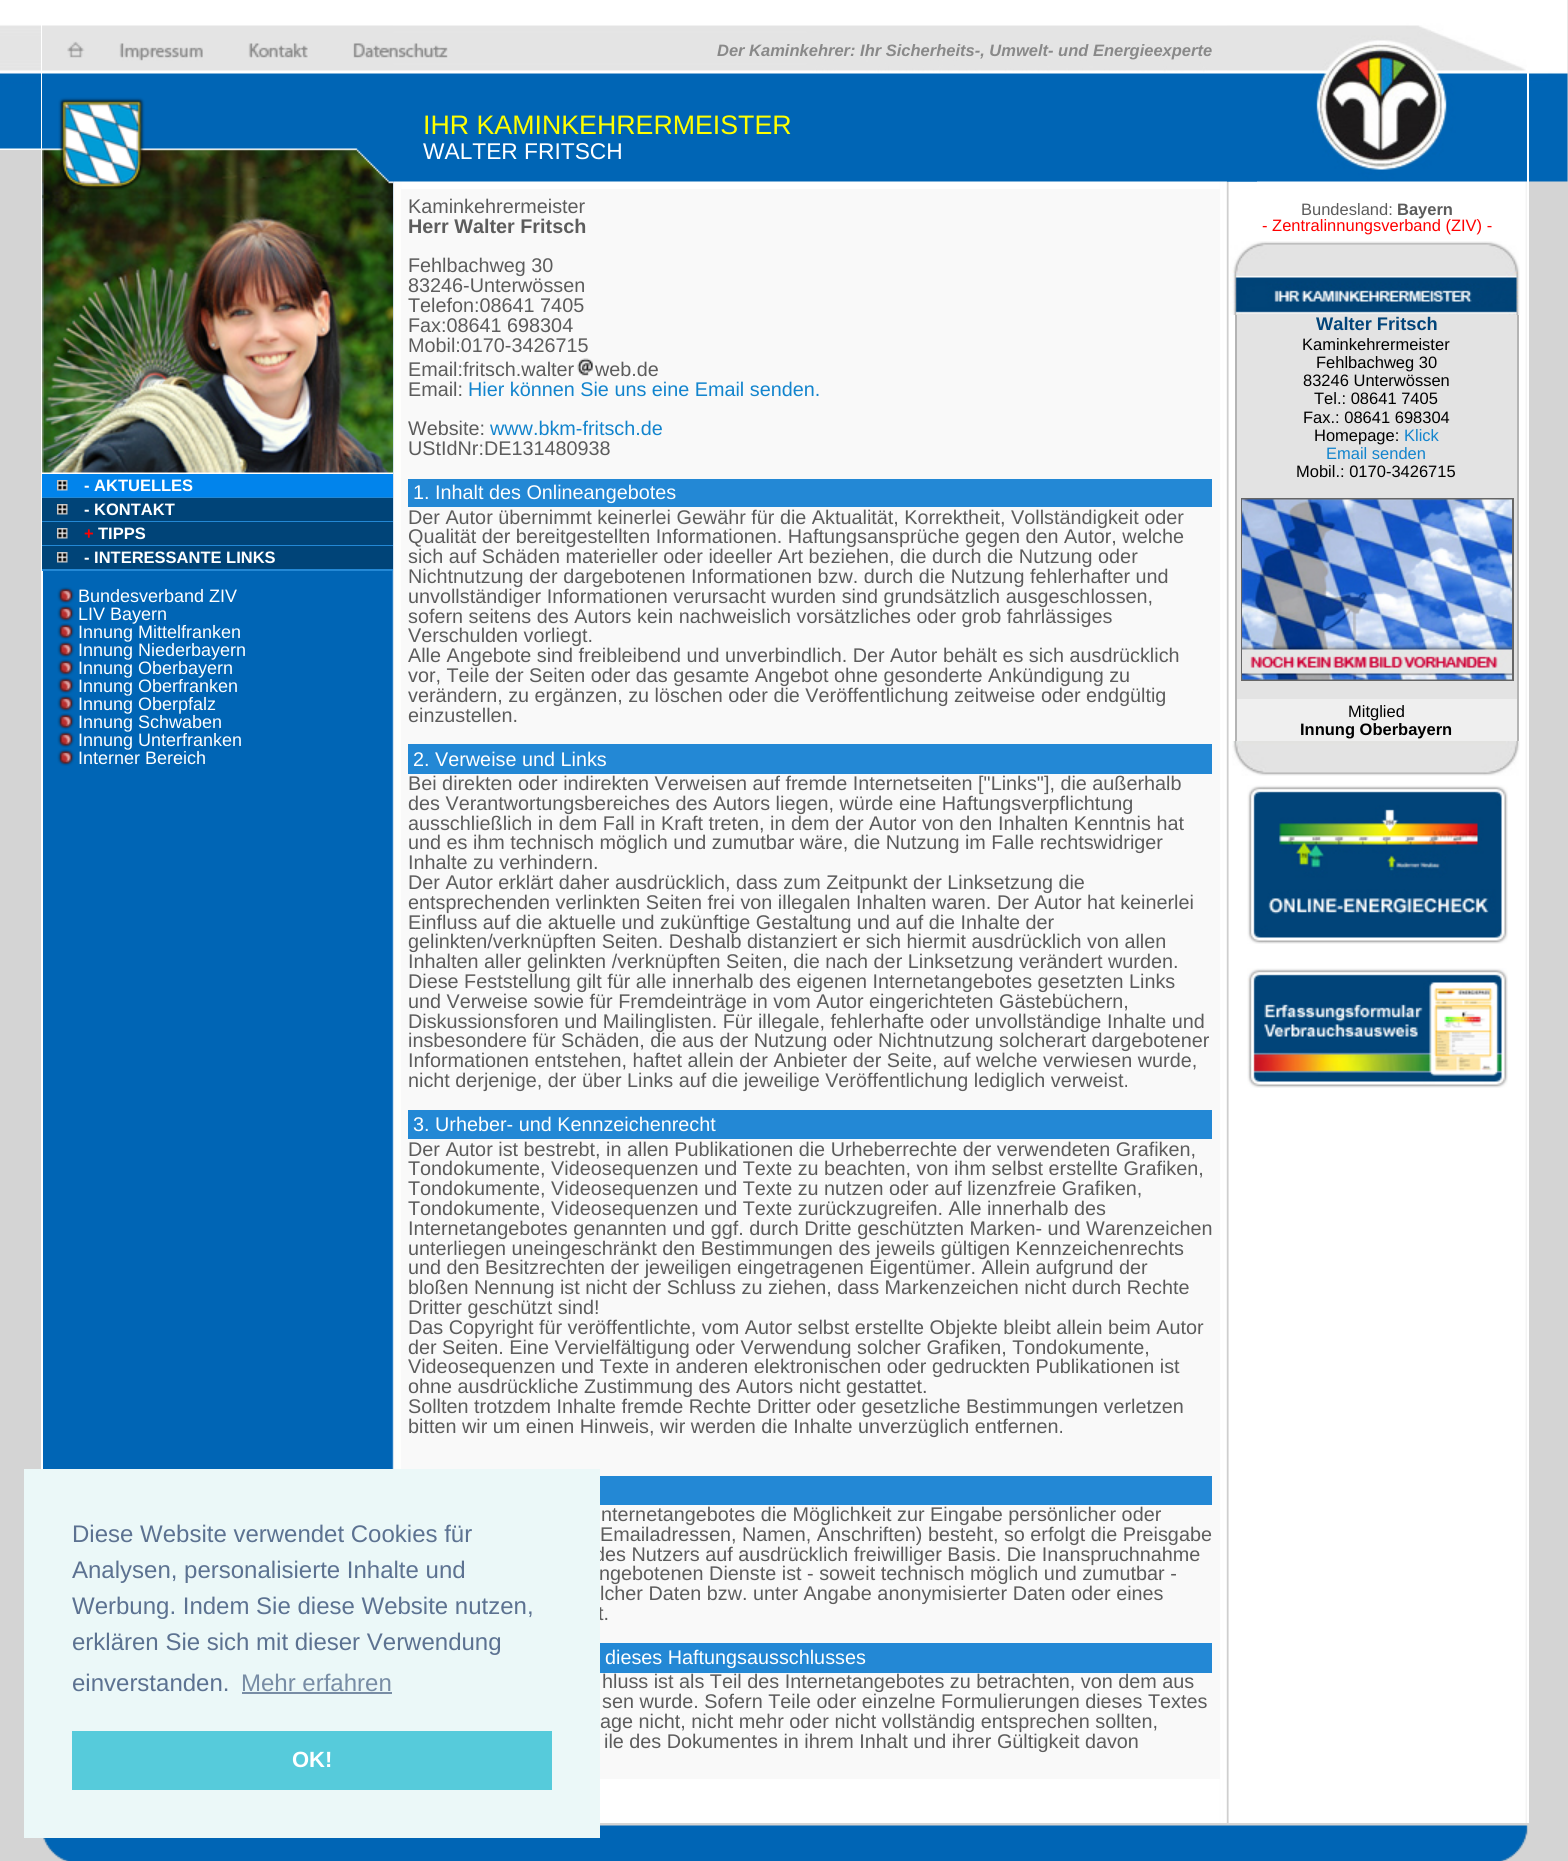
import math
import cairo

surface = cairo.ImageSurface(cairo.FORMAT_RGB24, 1568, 1861)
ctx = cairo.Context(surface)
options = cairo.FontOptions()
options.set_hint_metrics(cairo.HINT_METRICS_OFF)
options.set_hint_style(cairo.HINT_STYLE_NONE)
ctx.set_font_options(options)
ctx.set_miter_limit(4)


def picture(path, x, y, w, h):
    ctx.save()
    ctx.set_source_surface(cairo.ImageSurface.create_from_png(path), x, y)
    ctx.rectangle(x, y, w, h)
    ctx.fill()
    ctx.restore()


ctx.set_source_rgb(0.831, 0.831, 0.831)
ctx.paint()
picture("img1.png", 0, 0, 41, 150)
picture("img2.png", 43, 181, 1484, 1642)
ctx.set_source_rgb(1, 1, 1)
ctx.rectangle(1527, 0, 2, 1823)
ctx.fill()
ctx.rectangle(41, 0, 2, 1469)
ctx.fill()
picture("img16.png", 42, 149, 351, 325)
picture("img17.png", 42, 0, 351, 372)
picture("img3.png", 67, 41, 18, 17)
picture("img4.png", 119, 43, 84, 18)
picture("img5.png", 248, 43, 60, 15)
picture("img8.png", 393, 0, 864, 182)
picture("img6.png", 353, 43, 95, 15)
ctx.select_font_face("Liberation Sans", cairo.FONT_SLANT_ITALIC, cairo.FONT_WEIGHT_BOLD)
ctx.set_font_size(16.5)
ctx.set_source_rgb(0.537, 0.537, 0.537)
ctx.move_to(717, 56)
ctx.show_text("Der Kaminkehrer: Ihr Sicherheits-, Umwelt- und Energieexperte")
picture("img7.png", 58, 97, 87, 93)
ctx.select_font_face("Liberation Sans")
ctx.set_font_size(26.75)
ctx.set_source_rgb(1, 1, 0)
ctx.move_to(423, 134)
ctx.show_text("IHR KAMINKEHRERMEISTER")
ctx.set_font_size(22.75)
ctx.set_source_rgb(1, 1, 1)
ctx.move_to(423, 159)
ctx.show_text("WALTER FRITSCH")
ctx.set_source_rgb(0.973, 0.973, 0.973)
ctx.rectangle(401, 189, 819, 1590)
ctx.fill()
ctx.set_font_size(19.8)
ctx.set_source_rgb(0.361, 0.361, 0.361)
ctx.move_to(408, 213)
ctx.show_text("Kaminkehrermeister")
ctx.select_font_face("Liberation Sans", cairo.FONT_SLANT_NORMAL, cairo.FONT_WEIGHT_BOLD)
ctx.move_to(408, 233)
ctx.show_text("Herr Walter Fritsch")
ctx.select_font_face("Liberation Sans")
ctx.move_to(408, 272)
ctx.show_text("Fehlbachweg 30")
ctx.move_to(408, 292)
ctx.show_text("83246-Unterwössen")
ctx.move_to(408, 312)
ctx.show_text("Telefon:08641 7405")
ctx.move_to(408, 332)
ctx.show_text("Fax:08641 698304")
ctx.move_to(408, 352)
ctx.show_text("Mobil:0170-3426715")
ctx.move_to(408, 376)
ctx.show_text("Email:fritsch.walter")
picture("img9.png", 577, 358, 16, 18)
ctx.move_to(595, 376)
ctx.show_text("web.de")
ctx.move_to(408, 396)
ctx.show_text("Email:")
ctx.set_source_rgb(0.071, 0.518, 0.804)
ctx.move_to(468, 396)
ctx.show_text("Hier können Sie uns eine Email senden.")
ctx.set_source_rgb(0.361, 0.361, 0.361)
ctx.move_to(408, 435)
ctx.show_text("Website:")
ctx.set_source_rgb(0.071, 0.518, 0.804)
ctx.move_to(490, 435)
ctx.show_text("www.bkm-fritsch.de")
ctx.set_source_rgb(0.361, 0.361, 0.361)
ctx.move_to(408, 455)
ctx.show_text("UStIdNr:DE131480938")
ctx.set_source_rgb(0.137, 0.533, 0.835)
ctx.rectangle(408, 479, 804, 28)
ctx.fill()
ctx.set_source_rgb(1, 1, 1)
ctx.move_to(413, 499)
ctx.show_text("1. Inhalt des Onlineangebotes")
ctx.set_source_rgb(0.361, 0.361, 0.361)
ctx.move_to(408, 524)
ctx.show_text("Der Autor übernimmt keinerlei Gewähr für die Aktualität, Korrektheit, Vollständigkeit oder")
ctx.move_to(408, 543)
ctx.show_text("Qualität der bereitgestellten Informationen. Haftungsansprüche gegen den Autor, welche")
ctx.move_to(408, 563)
ctx.show_text("sich auf Schäden materieller oder ideeller Art beziehen, die durch die Nutzung oder")
ctx.move_to(408, 583)
ctx.show_text("Nichtnutzung der dargebotenen Informationen bzw. durch die Nutzung fehlerhafter und")
ctx.move_to(408, 603)
ctx.show_text("unvollständiger Informationen verursacht wurden sind grundsätzlich ausgeschlossen,")
ctx.move_to(408, 623)
ctx.show_text("sofern seitens des Autors kein nachweislich vorsätzliches oder grob fahrlässiges")
ctx.move_to(408, 642)
ctx.show_text("Verschulden vorliegt.")
ctx.move_to(408, 662)
ctx.show_text("Alle Angebote sind freibleibend und unverbindlich. Der Autor behält es sich ausdrücklich")
ctx.move_to(408, 682)
ctx.show_text("vor, Teile der Seiten oder das gesamte Angebot ohne gesonderte Ankündigung zu")
ctx.move_to(408, 702)
ctx.show_text("verändern, zu ergänzen, zu löschen oder die Veröffentlichung zeitweise oder endgültig")
ctx.move_to(408, 722)
ctx.show_text("einzustellen.")
ctx.set_source_rgb(0.137, 0.533, 0.835)
ctx.rectangle(408, 744, 804, 30)
ctx.fill()
ctx.set_source_rgb(1, 1, 1)
ctx.move_to(413, 766)
ctx.show_text("2. Verweise und Links")
ctx.set_source_rgb(0.361, 0.361, 0.361)
ctx.move_to(408, 790)
ctx.show_text("Bei direkten oder indirekten Verweisen auf fremde Internetseiten [\"Links\"], die außerhalb")
ctx.move_to(408, 810)
ctx.show_text("des Verantwortungsbereiches des Autors liegen, würde eine Haftungsverpflichtung")
ctx.move_to(408, 830)
ctx.show_text("ausschließlich in dem Fall in Kraft treten, in dem der Autor von den Inhalten Kenntnis hat")
ctx.move_to(408, 849)
ctx.show_text("und es ihm technisch möglich und zumutbar wäre, die Nutzung im Falle rechtswidriger")
ctx.move_to(408, 869)
ctx.show_text("Inhalte zu verhindern.")
ctx.move_to(408, 889)
ctx.show_text("Der Autor erklärt daher ausdrücklich, dass zum Zeitpunkt der Linksetzung die")
ctx.move_to(408, 909)
ctx.show_text("entsprechenden verlinkten Seiten frei von illegalen Inhalten waren. Der Autor hat keinerlei")
ctx.move_to(408, 929)
ctx.show_text("Einfluss auf die aktuelle und zukünftige Gestaltung und auf die Inhalte der")
ctx.move_to(408, 948)
ctx.show_text("gelinkten/verknüpften Seiten. Deshalb distanziert er sich hiermit ausdrücklich von allen")
ctx.move_to(408, 968)
ctx.show_text("Inhalten aller gelinkten /verknüpften Seiten, die nach der Linksetzung verändert wurden.")
ctx.move_to(408, 988)
ctx.show_text("Diese Feststellung gilt für alle innerhalb des eigenen Internetangebotes gesetzten Links")
ctx.move_to(408, 1008)
ctx.show_text("und Verweise sowie für Fremdeinträge in vom Autor eingerichteten Gästebüchern,")
ctx.move_to(408, 1028)
ctx.show_text("Diskussionsforen und Mailinglisten. Für illegale, fehlerhafte oder unvollständige Inhalte und")
ctx.move_to(408, 1047)
ctx.show_text("insbesondere für Schäden, die aus der Nutzung oder Nichtnutzung solcherart dargebotener")
ctx.move_to(408, 1067)
ctx.show_text("Informationen entstehen, haftet allein der Anbieter der Seite, auf welche verwiesen wurde,")
ctx.move_to(408, 1087)
ctx.show_text("nicht derjenige, der über Links auf die jeweilige Veröffentlichung lediglich verweist.")
ctx.set_source_rgb(0.137, 0.533, 0.835)
ctx.rectangle(408, 1110, 804, 29)
ctx.fill()
ctx.set_source_rgb(1, 1, 1)
ctx.move_to(413, 1131)
ctx.show_text("3. Urheber- und Kennzeichenrecht")
ctx.set_source_rgb(0.361, 0.361, 0.361)
ctx.move_to(408, 1156)
ctx.show_text("Der Autor ist bestrebt, in allen Publikationen die Urheberrechte der verwendeten Grafiken,")
ctx.move_to(408, 1175)
ctx.show_text("Tondokumente, Videosequenzen und Texte zu beachten, von ihm selbst erstellte Grafiken,")
ctx.move_to(408, 1195)
ctx.show_text("Tondokumente, Videosequenzen und Texte zu nutzen oder auf lizenzfreie Grafiken,")
ctx.move_to(408, 1215)
ctx.show_text("Tondokumente, Videosequenzen und Texte zurückzugreifen. Alle innerhalb des")
ctx.move_to(408, 1235)
ctx.show_text("Internetangebotes genannten und ggf. durch Dritte geschützten Marken- und Warenzeichen")
ctx.move_to(408, 1255)
ctx.show_text("unterliegen uneingeschränkt den Bestimmungen des jeweils gültigen Kennzeichenrechts")
ctx.move_to(408, 1274)
ctx.show_text("und den Besitzrechten der jeweiligen eingetragenen Eigentümer. Allein aufgrund der")
ctx.move_to(408, 1294)
ctx.show_text("bloßen Nennung ist nicht der Schluss zu ziehen, dass Markenzeichen nicht durch Rechte")
ctx.move_to(408, 1314)
ctx.show_text("Dritter geschützt sind!")
ctx.move_to(408, 1334)
ctx.show_text("Das Copyright für veröffentlichte, vom Autor selbst erstellte Objekte bleibt allein beim Autor")
ctx.move_to(408, 1354)
ctx.show_text("der Seiten. Eine Vervielfältigung oder Verwendung solcher Grafiken, Tondokumente,")
ctx.move_to(408, 1373)
ctx.show_text("Videosequenzen und Texte in anderen elektronischen oder gedruckten Publikationen ist")
ctx.move_to(408, 1393)
ctx.show_text("ohne ausdrückliche Zustimmung des Autors nicht gestattet.")
ctx.move_to(408, 1413)
ctx.show_text("Sollten trotzdem Inhalte fremde Rechte Dritter oder gesetzliche Bestimmungen verletzen")
ctx.move_to(408, 1433)
ctx.show_text("bitten wir um einen Hinweis, wir werden die Inhalte unverzüglich entfernen.")
ctx.set_source_rgb(0.137, 0.533, 0.835)
ctx.rectangle(600, 1476, 612, 29)
ctx.fill()
ctx.set_source_rgb(0.361, 0.361, 0.361)
ctx.move_to(601, 1521)
ctx.show_text("nternetangebotes die Möglichkeit zur Eingabe persönlicher oder")
ctx.move_to(600, 1541)
ctx.show_text("Emailadressen, Namen, Anschriften) besteht, so erfolgt die Preisgabe")
ctx.move_to(594, 1561)
ctx.show_text("des Nutzers auf ausdrücklich freiwilliger Basis. Die Inanspruchnahme")
ctx.move_to(599, 1580)
ctx.show_text("ngebotenen Dienste ist - soweit technisch möglich und zumutbar -")
ctx.move_to(600, 1600)
ctx.show_text("lcher Daten bzw. unter Angabe anonymisierter Daten oder eines")
ctx.move_to(598, 1620)
ctx.show_text("t.")
ctx.set_source_rgb(0.137, 0.533, 0.835)
ctx.rectangle(600, 1643, 612, 30)
ctx.fill()
ctx.set_source_rgb(1, 1, 1)
ctx.move_to(605, 1664)
ctx.show_text("dieses Haftungsausschlusses")
ctx.set_source_rgb(0.361, 0.361, 0.361)
ctx.move_to(602, 1688)
ctx.show_text("hluss ist als Teil des Internetangebotes zu betrachten, von dem aus")
ctx.move_to(602, 1708)
ctx.show_text("sen wurde. Sofern Teile oder einzelne Formulierungen dieses Textes")
ctx.move_to(600, 1728)
ctx.show_text("age nicht, nicht mehr oder nicht vollständig entsprechen sollten,")
ctx.move_to(604, 1748)
ctx.show_text("ile des Dokumentes in ihrem Inhalt und ihrer Gültigkeit davon")
picture("img10.png", 1227, 0, 300, 182)
ctx.set_font_size(16.5)
ctx.move_to(1301, 215)
ctx.show_text("Bundesland:")
ctx.select_font_face("Liberation Sans", cairo.FONT_SLANT_NORMAL, cairo.FONT_WEIGHT_BOLD)
ctx.move_to(1397, 215)
ctx.show_text("Bayern")
ctx.select_font_face("Liberation Sans")
ctx.set_source_rgb(1, 0, 0)
ctx.move_to(1262, 231)
ctx.show_text("- Zentralinnungsverband (ZIV) -")
picture("img11.png", 1230, 241, 290, 74)
ctx.set_source_rgb(0.89, 0.89, 0.89)
ctx.rectangle(1237, 315, 280, 384)
ctx.fill()
ctx.set_source_rgb(0.706, 0.706, 0.706)
ctx.rectangle(1517, 315, 2, 426)
ctx.fill()
ctx.rectangle(1235, 315, 2, 426)
ctx.fill()
ctx.select_font_face("Liberation Sans", cairo.FONT_SLANT_NORMAL, cairo.FONT_WEIGHT_BOLD)
ctx.set_font_size(18.25)
ctx.set_source_rgb(0.004, 0.267, 0.475)
ctx.move_to(1316, 330)
ctx.show_text("Walter Fritsch")
ctx.select_font_face("Liberation Sans")
ctx.set_font_size(16.5)
ctx.set_source_rgb(0, 0, 0)
ctx.move_to(1302, 350)
ctx.show_text("Kaminkehrermeister")
ctx.move_to(1316, 368)
ctx.show_text("Fehlbachweg 30")
ctx.move_to(1303, 386)
ctx.show_text("83246 Unterwössen")
ctx.move_to(1314, 404)
ctx.show_text("Tel.: 08641 7405")
ctx.move_to(1303, 423)
ctx.show_text("Fax.: 08641 698304")
ctx.move_to(1314, 441)
ctx.show_text("Homepage:")
ctx.set_source_rgb(0.071, 0.518, 0.804)
ctx.move_to(1404, 441)
ctx.show_text("Klick")
ctx.move_to(1326, 459)
ctx.show_text("Email senden")
ctx.set_source_rgb(0, 0, 0)
ctx.move_to(1296, 477)
ctx.show_text("Mobil.: 0170-3426715")
ctx.rectangle(1242, 499, 271, 181)
ctx.set_source_rgb(0.4, 0.4, 0.4)
ctx.stroke()
picture("img12.png", 1242, 499, 270, 181)
ctx.set_source_rgb(0.937, 0.937, 0.937)
ctx.rectangle(1237, 699, 280, 42)
ctx.fill()
ctx.set_source_rgb(0, 0, 0)
ctx.move_to(1348, 717)
ctx.show_text("Mitglied")
ctx.select_font_face("Liberation Sans", cairo.FONT_SLANT_NORMAL, cairo.FONT_WEIGHT_BOLD)
ctx.move_to(1300, 735)
ctx.show_text("Innung Oberbayern")
picture("img13.png", 1232, 741, 288, 35)
picture("img14.png", 1247, 785, 261, 159)
picture("img15.png", 1247, 968, 261, 120)
ctx.set_source_rgb(0.004, 0.518, 0.925)
ctx.rectangle(42, 474, 351, 23)
ctx.fill()
picture("img18.png", 57, 480, 11, 11)
ctx.set_source_rgb(0.137, 0.533, 0.835)
ctx.rectangle(42, 497, 351, 1)
ctx.fill()
ctx.set_source_rgb(1, 1, 1)
ctx.move_to(84, 491)
ctx.show_text("- AKTUELLES")
ctx.set_source_rgb(0, 0.267, 0.471)
ctx.rectangle(42, 498, 351, 23)
ctx.fill()
picture("img19.png", 57, 504, 11, 11)
ctx.set_source_rgb(0.137, 0.533, 0.835)
ctx.rectangle(42, 521, 351, 1)
ctx.fill()
ctx.set_source_rgb(1, 1, 1)
ctx.move_to(84, 515)
ctx.show_text("- KONTAKT")
ctx.set_source_rgb(0, 0.267, 0.471)
ctx.rectangle(42, 522, 351, 23)
ctx.fill()
picture("img19.png", 57, 528, 11, 11)
ctx.set_source_rgb(0.137, 0.533, 0.835)
ctx.rectangle(42, 545, 351, 1)
ctx.fill()
ctx.set_source_rgb(1, 0, 0)
ctx.move_to(84, 539)
ctx.show_text("+")
ctx.set_source_rgb(1, 1, 1)
ctx.move_to(98, 539)
ctx.show_text("TIPPS")
ctx.set_source_rgb(0, 0.267, 0.471)
ctx.rectangle(42, 546, 351, 23)
ctx.fill()
picture("img19.png", 57, 552, 11, 11)
ctx.set_source_rgb(0.137, 0.533, 0.835)
ctx.rectangle(42, 569, 351, 2)
ctx.fill()
ctx.set_source_rgb(1, 1, 1)
ctx.move_to(84, 563)
ctx.show_text("- INTERESSANTE LINKS")
picture("img20.png", 57, 587, 18, 17)
ctx.select_font_face("Liberation Sans")
ctx.set_font_size(18)
ctx.move_to(78, 602)
ctx.show_text("Bundesverband ZIV")
picture("img20.png", 57, 605, 18, 17)
ctx.move_to(78, 620)
ctx.show_text("LIV Bayern")
picture("img20.png", 57, 623, 18, 17)
ctx.move_to(78, 638)
ctx.show_text("Innung Mittelfranken")
picture("img20.png", 57, 641, 18, 17)
ctx.move_to(78, 656)
ctx.show_text("Innung Niederbayern")
picture("img20.png", 57, 659, 18, 17)
ctx.move_to(78, 674)
ctx.show_text("Innung Oberbayern")
picture("img20.png", 57, 677, 18, 17)
ctx.move_to(78, 692)
ctx.show_text("Innung Oberfranken")
picture("img20.png", 57, 695, 18, 17)
ctx.move_to(78, 710)
ctx.show_text("Innung Oberpfalz")
picture("img20.png", 57, 713, 18, 17)
ctx.move_to(78, 728)
ctx.show_text("Innung Schwaben")
picture("img20.png", 57, 731, 18, 17)
ctx.move_to(78, 746)
ctx.show_text("Innung Unterfranken")
picture("img20.png", 57, 749, 18, 17)
ctx.move_to(78, 764)
ctx.show_text("Interner Bereich")
picture("img21.png", 1529, 0, 39, 182)
picture("img22.png", 43, 1825, 1485, 36)
ctx.set_source_rgb(0.918, 0.969, 0.969)
ctx.rectangle(24, 1469, 576, 369)
ctx.fill()
ctx.set_font_size(24)
ctx.set_source_rgb(0.361, 0.447, 0.569)
ctx.move_to(72, 1542)
ctx.show_text("Diese Website verwendet Cookies für")
ctx.move_to(72, 1578)
ctx.show_text("Analysen, personalisierte Inhalte und")
ctx.move_to(72, 1614)
ctx.show_text("Werbung. Indem Sie diese Website nutzen,")
ctx.move_to(72, 1650)
ctx.show_text("erklären Sie sich mit dieser Verwendung")
ctx.move_to(72, 1691)
ctx.show_text("einverstanden.")
ctx.set_source_rgb(0.471, 0.553, 0.647)
ctx.move_to(241, 1691)
ctx.show_text("Mehr erfahren")
ctx.rectangle(242, 1692, 150, 2)
ctx.fill()
ctx.set_source_rgb(0.337, 0.796, 0.859)
ctx.rectangle(72, 1731, 480, 59)
ctx.fill()
ctx.select_font_face("Liberation Sans", cairo.FONT_SLANT_NORMAL, cairo.FONT_WEIGHT_BOLD)
ctx.set_font_size(22)
ctx.set_source_rgb(1, 1, 1)
ctx.move_to(292, 1767)
ctx.show_text("OK!")
surface.write_to_png("page.png")
